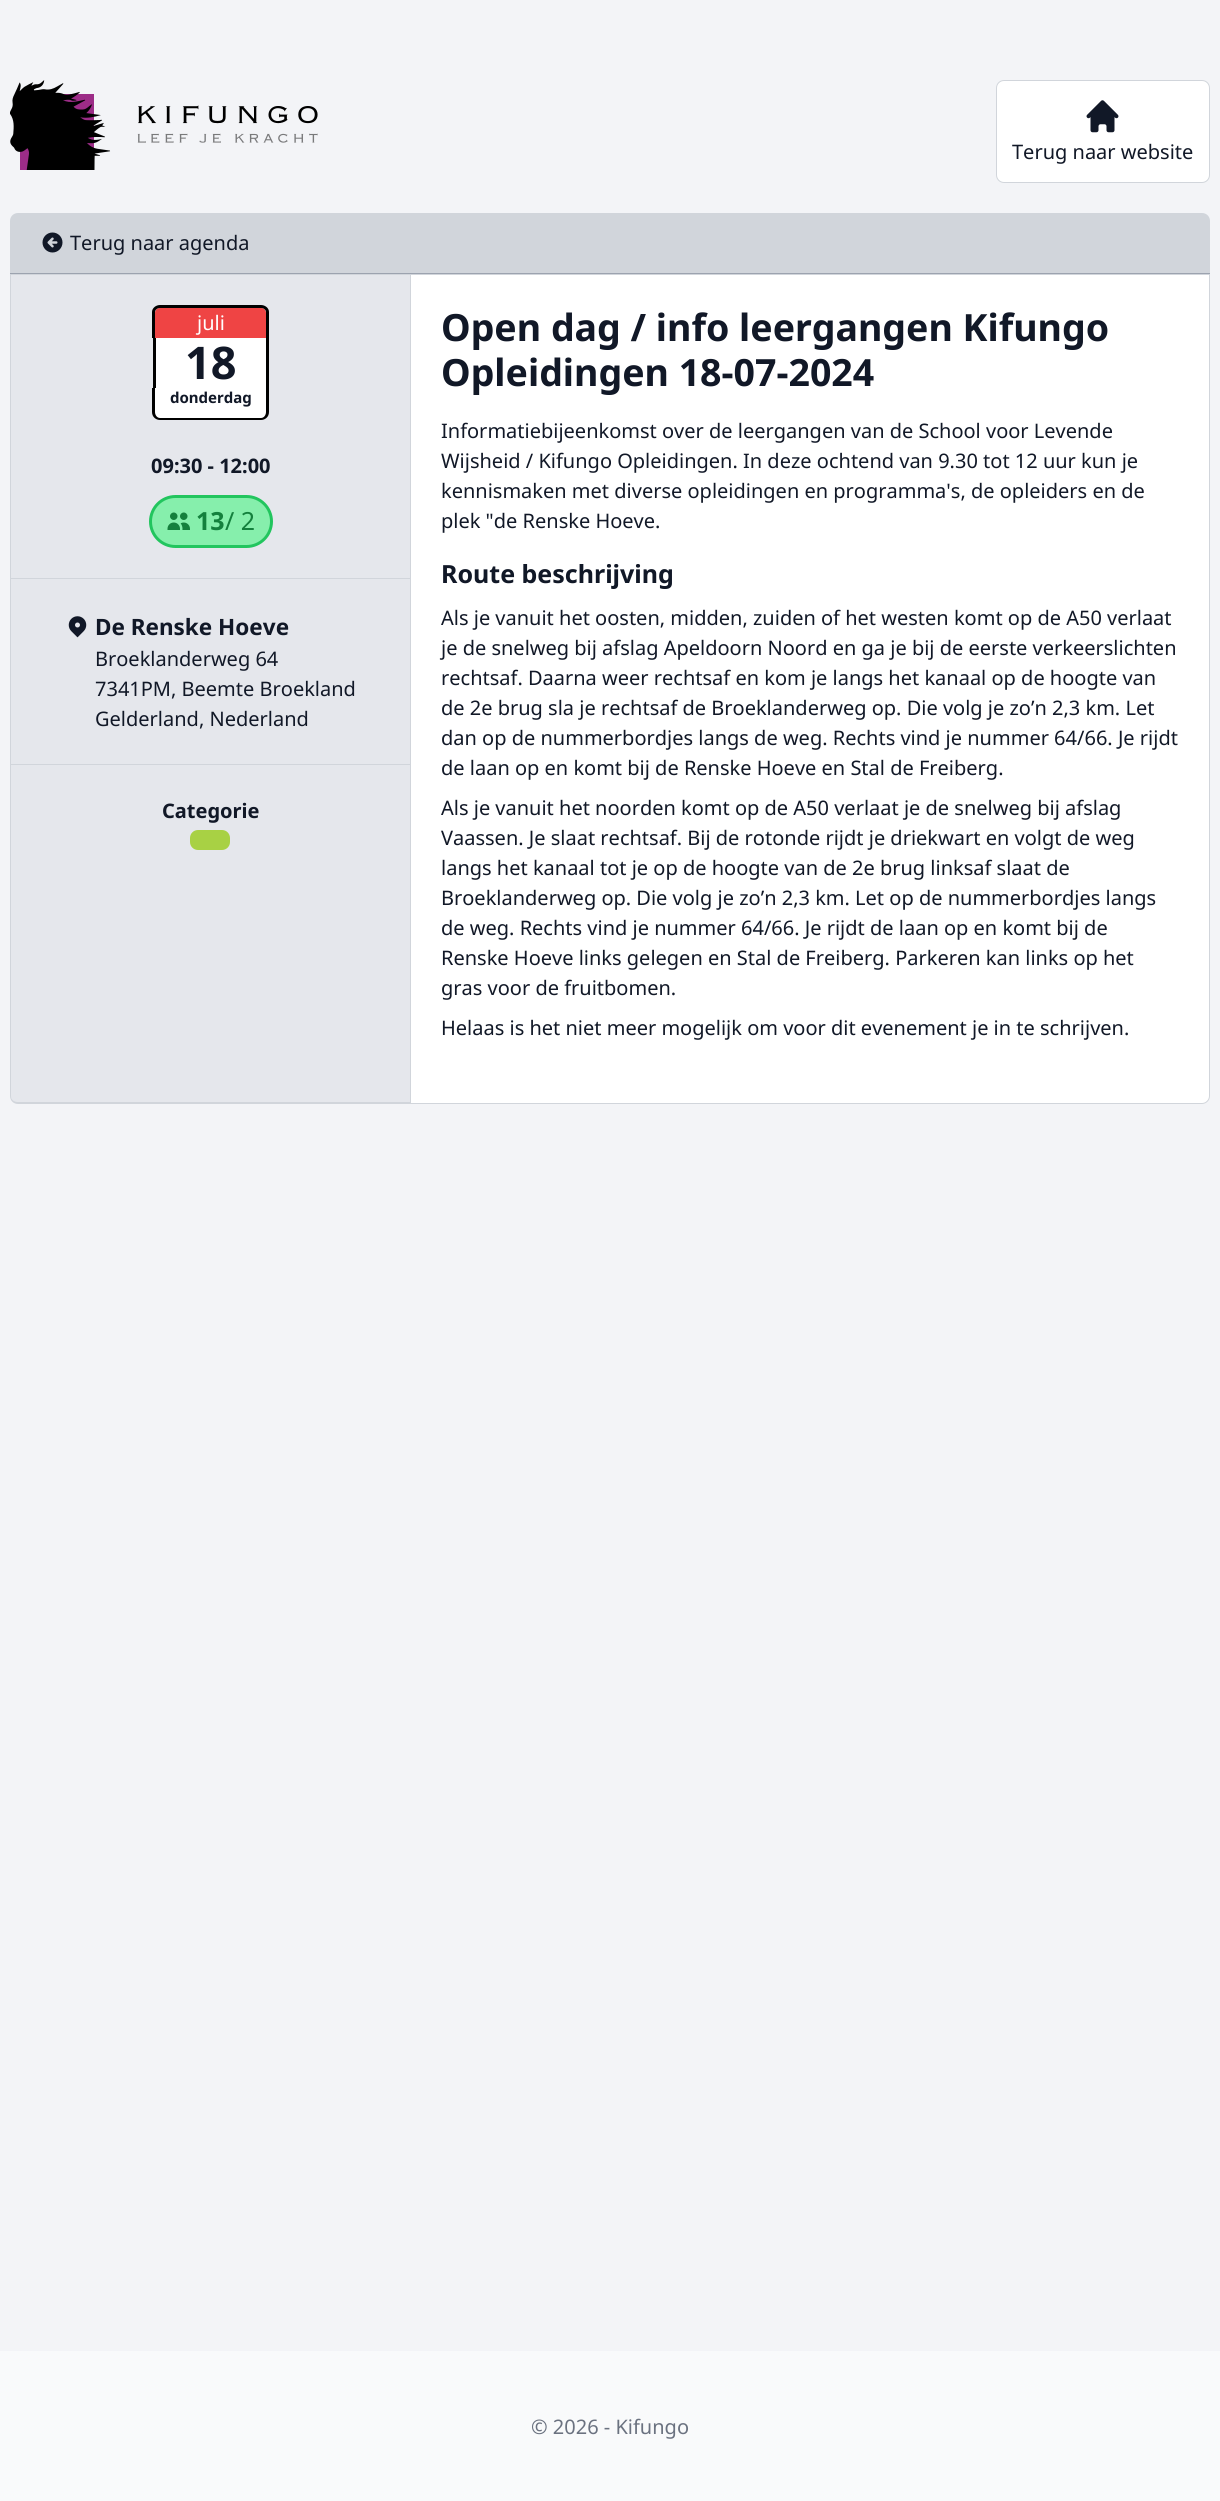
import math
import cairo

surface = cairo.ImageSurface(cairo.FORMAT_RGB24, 1220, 2501)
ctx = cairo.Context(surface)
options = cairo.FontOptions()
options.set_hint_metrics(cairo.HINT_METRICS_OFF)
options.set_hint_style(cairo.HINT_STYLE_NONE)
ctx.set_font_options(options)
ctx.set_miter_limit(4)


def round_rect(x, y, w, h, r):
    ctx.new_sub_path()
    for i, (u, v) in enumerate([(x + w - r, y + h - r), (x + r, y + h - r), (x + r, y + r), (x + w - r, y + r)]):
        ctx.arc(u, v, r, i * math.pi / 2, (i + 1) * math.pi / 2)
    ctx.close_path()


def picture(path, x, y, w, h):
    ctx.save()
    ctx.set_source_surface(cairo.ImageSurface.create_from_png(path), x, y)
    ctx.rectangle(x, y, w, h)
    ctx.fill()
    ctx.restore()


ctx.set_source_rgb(0.953, 0.957, 0.965)
ctx.paint()
picture("img1.png", 10, 80, 308, 90)
ctx.set_source_rgb(1, 1, 1)
round_rect(996.5, 80.5, 213, 102, 7.5)
ctx.fill_preserve()
ctx.set_source_rgb(0.82, 0.835, 0.859)
ctx.set_line_width(1)
ctx.stroke()
picture("img2.png", 1086, 100, 33, 33)
ctx.select_font_face("Noto Sans")
ctx.set_font_size(20)
ctx.set_source_rgb(0.067, 0.094, 0.153)
ctx.move_to(1012, 159)
ctx.show_text("Terug naar website")
ctx.set_source_rgb(0.82, 0.835, 0.859)
ctx.new_path()
ctx.move_to(18, 213)
ctx.line_to(1202, 213)
ctx.curve_to(1206.5, 213, 1210, 216.5, 1210, 221)
ctx.line_to(1210, 273)
ctx.line_to(10, 273)
ctx.line_to(10, 221)
ctx.curve_to(10, 216.5, 13.5, 213, 18, 213)
ctx.close_path()
ctx.fill()
ctx.set_source_rgb(0.612, 0.639, 0.686)
ctx.rectangle(10, 273, 1200, 1)
ctx.fill()
picture("img3.png", 42, 232, 21, 21)
ctx.set_source_rgb(0.067, 0.094, 0.153)
ctx.move_to(70, 250)
ctx.show_text("Terug naar agenda")
ctx.set_source_rgb(0.898, 0.906, 0.922)
ctx.new_path()
ctx.move_to(11, 275)
ctx.line_to(410, 275)
ctx.line_to(410, 1103)
ctx.line_to(17, 1103)
ctx.curve_to(13.5, 1103, 11, 1100.5, 11, 1097)
ctx.close_path()
ctx.fill()
ctx.set_source_rgb(0.82, 0.835, 0.859)
ctx.set_fill_rule(cairo.FILL_RULE_EVEN_ODD)
ctx.new_path()
ctx.move_to(10, 274)
ctx.line_to(410, 274)
ctx.line_to(410, 1104)
ctx.line_to(18, 1104)
ctx.curve_to(13, 1104, 10, 1100, 10, 1096)
ctx.close_path()
ctx.move_to(11, 275)
ctx.line_to(410, 275)
ctx.line_to(410, 1102)
ctx.line_to(18, 1102)
ctx.curve_to(14, 1102, 11, 1100, 11, 1096)
ctx.close_path()
ctx.fill()
ctx.set_source_rgb(0.937, 0.267, 0.267)
ctx.new_path()
ctx.move_to(160, 308)
ctx.line_to(261, 308)
ctx.curve_to(264, 308, 266, 310, 266, 313)
ctx.line_to(266, 338)
ctx.line_to(155, 338)
ctx.line_to(155, 313)
ctx.curve_to(155, 310, 157, 308, 160, 308)
ctx.close_path()
ctx.fill()
ctx.set_source_rgb(0, 0, 0)
ctx.new_path()
ctx.move_to(160, 305)
ctx.line_to(261, 305)
ctx.curve_to(265, 305, 269, 308, 269, 312)
ctx.line_to(269, 338)
ctx.line_to(152, 338)
ctx.line_to(152, 312)
ctx.curve_to(152, 308, 156, 305, 160, 305)
ctx.close_path()
ctx.move_to(160, 308)
ctx.line_to(261, 308)
ctx.curve_to(264, 308, 266, 310, 266, 312)
ctx.line_to(266, 338)
ctx.line_to(155, 338)
ctx.line_to(155, 312)
ctx.curve_to(155, 310, 157, 308, 160, 308)
ctx.close_path()
ctx.fill()
ctx.set_source_rgb(1, 1, 1)
ctx.move_to(197, 330)
ctx.show_text("juli")
ctx.rectangle(156, 338, 110, 50)
ctx.fill()
ctx.set_source_rgb(0, 0, 0)
ctx.rectangle(266, 338, 3, 50)
ctx.fill()
ctx.rectangle(153, 338, 3, 50)
ctx.fill()
ctx.select_font_face("Noto Sans", cairo.FONT_SLANT_NORMAL, cairo.FONT_WEIGHT_BOLD)
ctx.set_font_size(45)
ctx.set_source_rgb(0.067, 0.094, 0.153)
ctx.move_to(185, 379)
ctx.show_text("18")
ctx.set_source_rgb(1, 1, 1)
ctx.new_path()
ctx.move_to(155, 388)
ctx.line_to(266, 388)
ctx.line_to(266, 413)
ctx.curve_to(266, 416, 264, 418, 261, 418)
ctx.line_to(160, 418)
ctx.curve_to(157, 418, 155, 416, 155, 413)
ctx.close_path()
ctx.fill()
ctx.set_source_rgb(0, 0, 0)
ctx.new_path()
ctx.move_to(152, 388)
ctx.line_to(269, 388)
ctx.line_to(269, 412)
ctx.curve_to(269, 417, 265, 420, 261, 420)
ctx.line_to(160, 420)
ctx.curve_to(156, 420, 152, 417, 152, 412)
ctx.close_path()
ctx.move_to(155, 388)
ctx.line_to(266, 388)
ctx.line_to(266, 412)
ctx.curve_to(266, 415, 264, 418, 261, 418)
ctx.line_to(160, 418)
ctx.curve_to(157, 418, 155, 415, 155, 412)
ctx.close_path()
ctx.fill()
ctx.set_font_size(15)
ctx.set_source_rgb(0.067, 0.094, 0.153)
ctx.move_to(170, 403)
ctx.show_text("donderdag")
ctx.set_font_size(20)
ctx.move_to(151, 473)
ctx.show_text("09:30 - 12:00")
ctx.set_source_rgb(0.525, 0.937, 0.675)
round_rect(150.5, 496.5, 121, 50, 25)
ctx.fill_preserve()
ctx.set_source_rgb(0.133, 0.773, 0.369)
ctx.set_line_width(3)
ctx.stroke()
picture("img4.png", 167, 512, 23, 18)
ctx.set_font_size(25)
ctx.set_source_rgb(0.082, 0.502, 0.239)
ctx.move_to(196, 530)
ctx.show_text("13")
ctx.select_font_face("Noto Sans")
ctx.move_to(225, 530)
ctx.show_text("/ 2")
ctx.set_source_rgb(0.82, 0.835, 0.859)
ctx.rectangle(11, 578, 399, 1)
ctx.fill()
picture("img5.png", 68, 616, 19, 22)
ctx.select_font_face("Noto Sans", cairo.FONT_SLANT_NORMAL, cairo.FONT_WEIGHT_BOLD)
ctx.set_font_size(22.5)
ctx.set_source_rgb(0.067, 0.094, 0.153)
ctx.move_to(95, 635)
ctx.show_text("De Renske Hoeve")
ctx.select_font_face("Noto Sans")
ctx.set_font_size(20)
ctx.move_to(95, 666)
ctx.show_text("Broeklanderweg 64")
ctx.move_to(95, 696)
ctx.show_text("7341PM, Beemte Broekland")
ctx.move_to(95, 726)
ctx.show_text("Gelderland, Nederland")
ctx.set_source_rgb(0.82, 0.835, 0.859)
ctx.rectangle(11, 764, 399, 1)
ctx.fill()
ctx.select_font_face("Noto Sans", cairo.FONT_SLANT_NORMAL, cairo.FONT_WEIGHT_BOLD)
ctx.set_source_rgb(0.067, 0.094, 0.153)
ctx.move_to(162, 818)
ctx.show_text("Categorie")
ctx.set_source_rgb(0.659, 0.82, 0.267)
round_rect(190, 830, 40, 20, 8)
ctx.fill()
ctx.set_source_rgb(1, 1, 1)
ctx.new_path()
ctx.move_to(410.5, 274.5)
ctx.line_to(1209.5, 274.5)
ctx.line_to(1209.5, 1096)
ctx.curve_to(1209.5, 1100, 1206, 1103.5, 1202, 1103.5)
ctx.line_to(410.5, 1103.5)
ctx.close_path()
ctx.fill_preserve()
ctx.set_source_rgb(0.82, 0.835, 0.859)
ctx.set_line_width(1)
ctx.stroke()
ctx.set_font_size(37.5)
ctx.set_source_rgb(0.067, 0.094, 0.153)
ctx.move_to(441, 341)
ctx.show_text("Open dag / info leergangen Kifungo")
ctx.move_to(441, 386)
ctx.show_text("Opleidingen 18-07-2024")
ctx.select_font_face("Noto Sans")
ctx.set_font_size(20)
ctx.move_to(441, 438)
ctx.show_text("Informatiebijeenkomst over de leergangen van de School voor Levende")
ctx.move_to(441, 468)
ctx.show_text("Wijsheid / Kifungo Opleidingen. In deze ochtend van 9.30 tot 12 uur kun je")
ctx.move_to(441, 498)
ctx.show_text("kennismaken met diverse opleidingen en programma's, de opleiders en de")
ctx.move_to(441, 528)
ctx.show_text("plek \"de Renske Hoeve.")
ctx.select_font_face("Noto Sans", cairo.FONT_SLANT_NORMAL, cairo.FONT_WEIGHT_BOLD)
ctx.set_font_size(25)
ctx.move_to(441, 583)
ctx.show_text("Route beschrijving")
ctx.select_font_face("Noto Sans")
ctx.set_font_size(20)
ctx.move_to(441, 625)
ctx.show_text("Als je vanuit het oosten, midden, zuiden of het westen komt op de A50 verlaat")
ctx.move_to(441, 655)
ctx.show_text("je de snelweg bij afslag Apeldoorn Noord en ga je bij de eerste verkeerslichten")
ctx.move_to(441, 685)
ctx.show_text("rechtsaf. Daarna weer rechtsaf en kom je langs het kanaal op de hoogte van")
ctx.move_to(441, 715)
ctx.show_text("de 2e brug sla je rechtsaf de Broeklanderweg op. Die volg je zo’n 2,3 km. Let")
ctx.move_to(441, 745)
ctx.show_text("dan op de nummerbordjes langs de weg. Rechts vind je nummer 64/66. Je rijdt")
ctx.move_to(441, 775)
ctx.show_text("de laan op en komt bij de Renske Hoeve en Stal de Freiberg.")
ctx.move_to(441, 815)
ctx.show_text("Als je vanuit het noorden komt op de A50 verlaat je de snelweg bij afslag")
ctx.move_to(441, 845)
ctx.show_text("Vaassen. Je slaat rechtsaf. Bij de rotonde rijdt je driekwart en volgt de weg")
ctx.move_to(441, 875)
ctx.show_text("langs het kanaal tot je op de hoogte van de 2e brug linksaf slaat de")
ctx.move_to(441, 905)
ctx.show_text("Broeklanderweg op. Die volg je zo’n 2,3 km. Let op de nummerbordjes langs")
ctx.move_to(441, 935)
ctx.show_text("de weg. Rechts vind je nummer 64/66. Je rijdt de laan op en komt bij de")
ctx.move_to(441, 965)
ctx.show_text("Renske Hoeve links gelegen en Stal de Freiberg. Parkeren kan links op het")
ctx.move_to(441, 995)
ctx.show_text("gras voor de fruitbomen.")
ctx.move_to(441, 1035)
ctx.show_text("Helaas is het niet meer mogelijk om voor dit evenement je in te schrijven.")
ctx.set_source_rgb(0.976, 0.98, 0.984)
ctx.rectangle(0, 2351, 1220, 150)
ctx.fill()
ctx.set_source_rgb(0.42, 0.447, 0.502)
ctx.move_to(531, 2434)
ctx.show_text("© 2026 - Kifungo")
surface.write_to_png("page.png")
